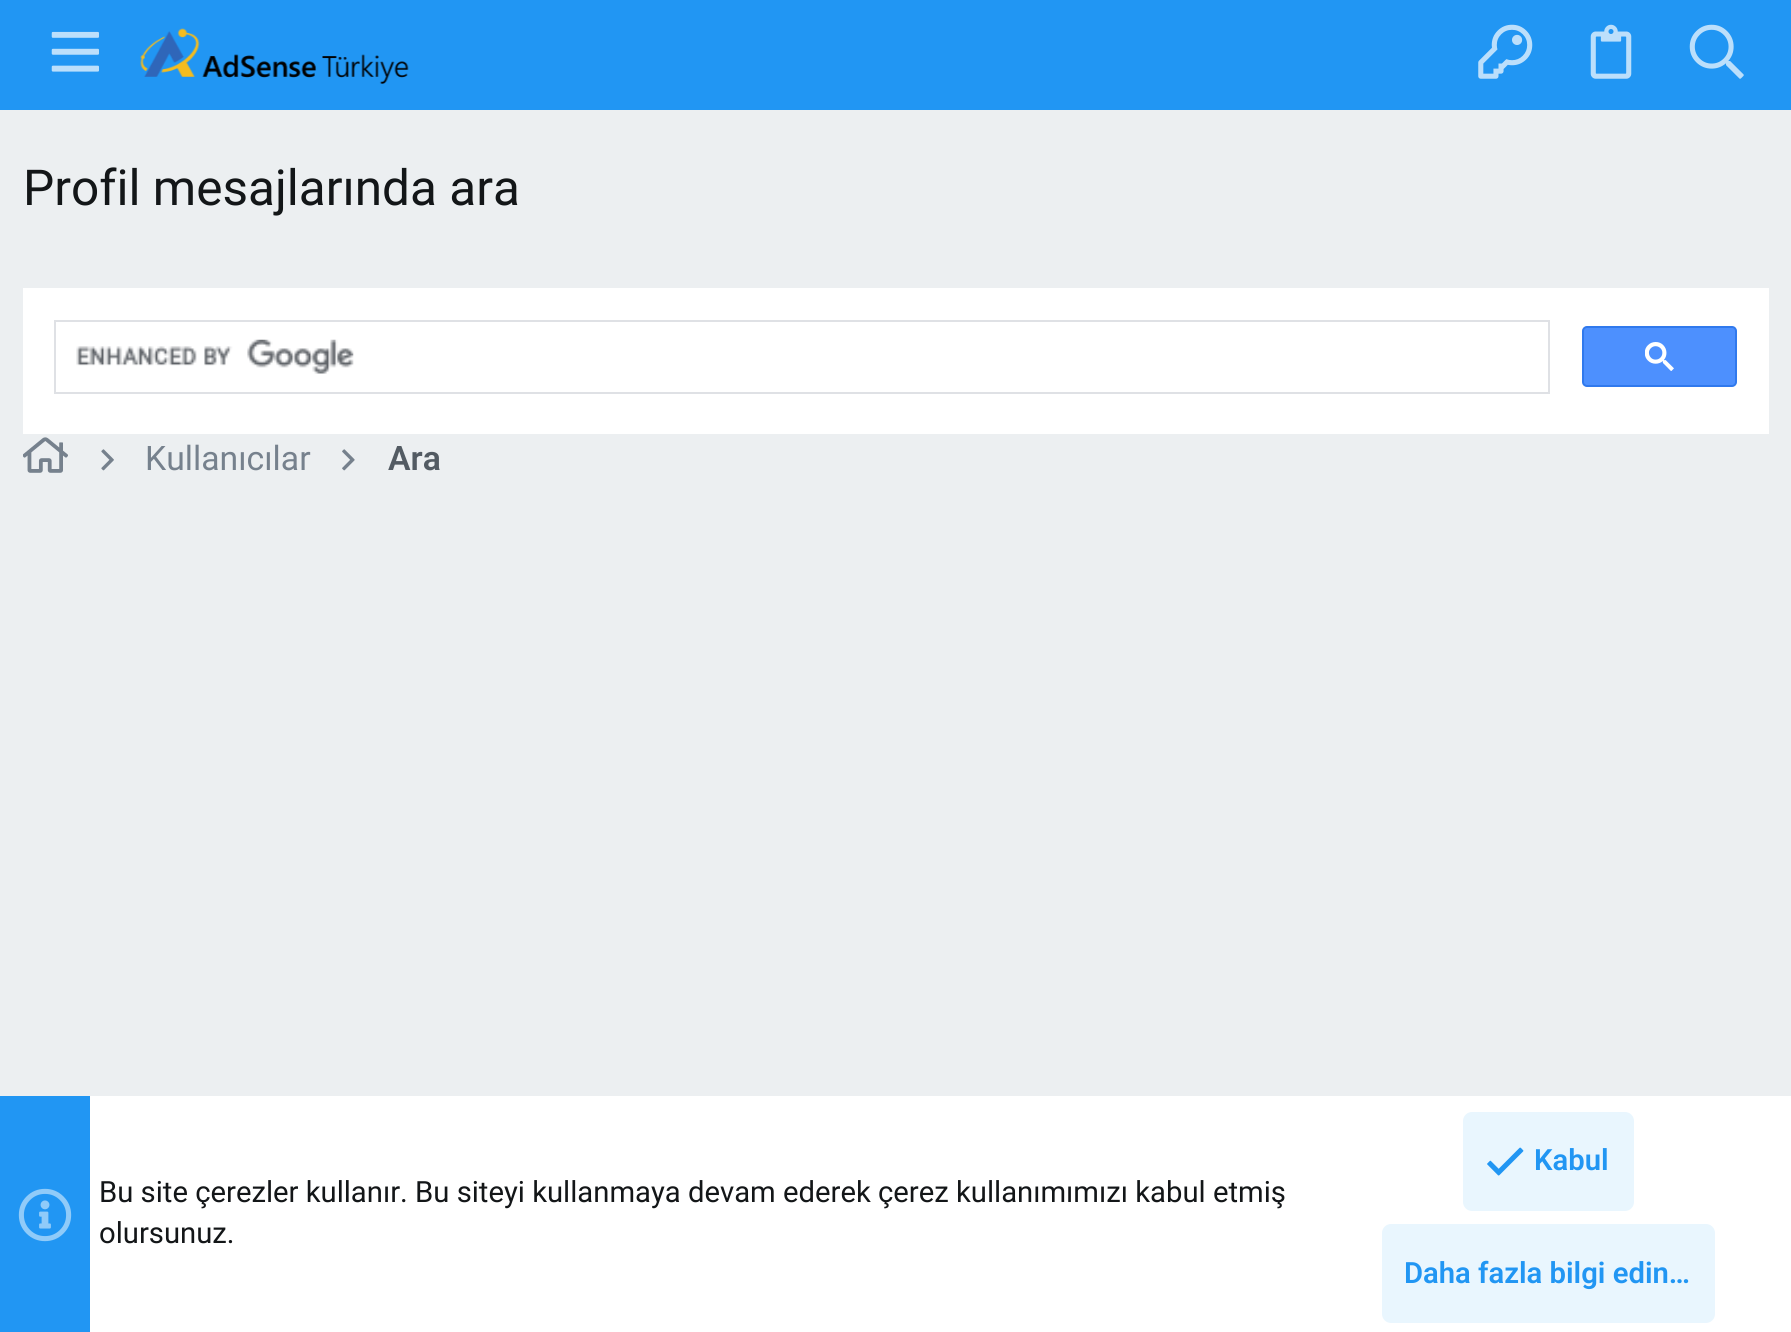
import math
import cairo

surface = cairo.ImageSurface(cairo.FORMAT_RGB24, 1791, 1332)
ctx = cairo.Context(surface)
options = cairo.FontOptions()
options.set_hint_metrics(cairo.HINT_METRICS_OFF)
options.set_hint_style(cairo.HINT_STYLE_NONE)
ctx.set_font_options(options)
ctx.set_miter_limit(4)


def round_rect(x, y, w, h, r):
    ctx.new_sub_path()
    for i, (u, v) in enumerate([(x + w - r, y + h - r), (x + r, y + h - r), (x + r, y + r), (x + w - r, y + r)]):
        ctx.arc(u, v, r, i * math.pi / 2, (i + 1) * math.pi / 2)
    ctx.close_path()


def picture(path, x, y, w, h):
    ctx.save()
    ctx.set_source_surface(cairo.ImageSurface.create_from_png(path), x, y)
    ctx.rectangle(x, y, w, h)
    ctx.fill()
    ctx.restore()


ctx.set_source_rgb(0.925, 0.937, 0.945)
ctx.paint()
ctx.set_source_rgb(0.129, 0.588, 0.953)
ctx.rectangle(0, 0, 1791, 110)
ctx.fill()
picture("img1.png", 51, 31, 48, 41)
picture("img2.png", 140, 28, 269, 56)
picture("img3.png", 1478, 24, 55, 55)
picture("img4.png", 1590, 24, 42, 55)
picture("img5.png", 1689, 24, 55, 55)
ctx.select_font_face("Roboto")
ctx.set_font_size(49.5)
ctx.set_source_rgb(0.078, 0.086, 0.094)
ctx.move_to(23, 205)
ctx.show_text("Profil mesajlarında ara")
ctx.set_source_rgb(1, 1, 1)
ctx.rectangle(23, 288, 1746, 146)
ctx.fill()
ctx.rectangle(55, 321, 1494, 72)
ctx.set_source_rgb(0.875, 0.882, 0.898)
ctx.stroke()
picture("img6.png", 76, 339, 278, 35)
ctx.set_source_rgb(0.302, 0.565, 0.996)
round_rect(1583, 327, 153, 59, 4)
ctx.fill_preserve()
ctx.set_source_rgb(0.188, 0.475, 0.929)
ctx.stroke()
picture("img7.png", 1645, 342, 29, 29)
picture("img8.png", 23, 437, 45, 36)
picture("img9.png", 101, 449, 13, 22)
ctx.set_font_size(33.75)
ctx.set_source_rgb(0.463, 0.506, 0.553)
ctx.move_to(145, 470)
ctx.show_text("Kullanıcılar")
picture("img10.png", 342, 449, 13, 22)
ctx.select_font_face("Roboto SemiBold")
ctx.set_source_rgb(0.325, 0.357, 0.388)
ctx.move_to(388, 470)
ctx.show_text("Ara")
ctx.set_source_rgb(1, 1, 1)
ctx.rectangle(90, 1096, 1701, 236)
ctx.fill()
ctx.set_source_rgb(0.129, 0.588, 0.953)
ctx.rectangle(0, 1096, 90, 236)
ctx.fill()
picture("img11.png", 18, 1188, 54, 54)
ctx.select_font_face("Roboto")
ctx.set_font_size(29.25)
ctx.set_source_rgb(0.078, 0.086, 0.094)
ctx.move_to(99, 1202)
ctx.show_text("Bu site çerezler kullanır. Bu siteyi kullanmaya devam ederek çerez kullanımımızı kabul etmiş")
ctx.move_to(99, 1243)
ctx.show_text("olursunuz.")
ctx.set_source_rgb(0.914, 0.961, 0.996)
round_rect(1463, 1112, 171, 99, 9)
ctx.fill()
picture("img12.png", 1487, 1147, 37, 29)
ctx.select_font_face("Roboto SemiBold")
ctx.set_source_rgb(0.129, 0.588, 0.953)
ctx.move_to(1534, 1170)
ctx.show_text("Kabul")
ctx.set_source_rgb(0.914, 0.961, 0.996)
round_rect(1382, 1224, 333, 99, 9)
ctx.fill()
ctx.set_source_rgb(0.129, 0.588, 0.953)
ctx.move_to(1404, 1283)
ctx.show_text("Daha fazla bilgi edin…")
surface.write_to_png("page.png")
